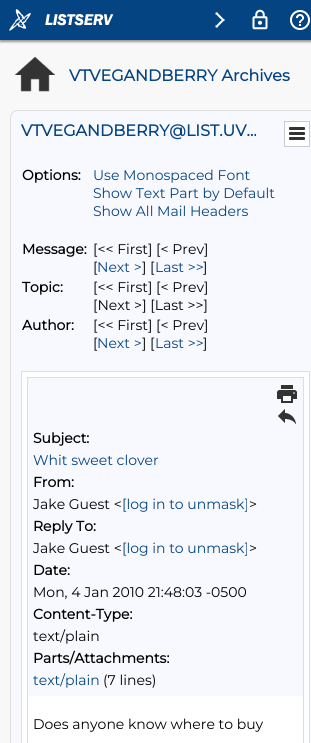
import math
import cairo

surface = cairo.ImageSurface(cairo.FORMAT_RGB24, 311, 743)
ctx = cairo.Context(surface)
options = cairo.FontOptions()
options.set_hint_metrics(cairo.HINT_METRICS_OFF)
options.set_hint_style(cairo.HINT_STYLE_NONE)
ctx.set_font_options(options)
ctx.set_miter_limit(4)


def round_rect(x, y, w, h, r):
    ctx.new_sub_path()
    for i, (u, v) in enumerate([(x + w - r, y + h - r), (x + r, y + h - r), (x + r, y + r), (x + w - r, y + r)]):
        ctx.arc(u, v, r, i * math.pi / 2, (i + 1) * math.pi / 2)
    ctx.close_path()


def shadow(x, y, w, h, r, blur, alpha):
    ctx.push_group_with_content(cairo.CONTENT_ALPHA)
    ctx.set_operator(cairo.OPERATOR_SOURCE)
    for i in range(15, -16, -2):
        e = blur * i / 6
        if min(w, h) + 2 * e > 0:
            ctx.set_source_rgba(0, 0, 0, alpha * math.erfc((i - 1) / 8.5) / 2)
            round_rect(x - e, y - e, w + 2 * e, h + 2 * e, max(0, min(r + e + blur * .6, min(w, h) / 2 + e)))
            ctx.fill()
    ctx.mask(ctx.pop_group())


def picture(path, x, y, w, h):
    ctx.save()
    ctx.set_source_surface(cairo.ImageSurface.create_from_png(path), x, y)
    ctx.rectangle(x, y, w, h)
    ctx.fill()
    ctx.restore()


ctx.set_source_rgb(0.969, 0.969, 0.969)
ctx.paint()
ctx.set_source_rgb(0.6, 0.6, 0.6)
shadow(0, 2, 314, 40, 0, 1, 1)
ctx.set_source_rgb(0.02, 0.267, 0.514)
ctx.rectangle(0, 0, 311, 40)
ctx.fill()
picture("img1.png", 9, 9, 22, 22)
picture("img2.png", 45, 14, 69, 12)
picture("img3.png", 215, 12, 10, 16)
picture("img4.png", 252, 9, 16, 21)
picture("img5.png", 290, 10, 20, 20)
picture("img6.png", 14, 57, 42, 35)
ctx.select_font_face("Montserrat", cairo.FONT_SLANT_NORMAL, cairo.FONT_WEIGHT_BOLD)
ctx.set_font_size(16)
ctx.move_to(69, 81)
ctx.show_text("VTVEGANDBERRY Archives")
ctx.set_source_rgb(0.969, 0.976, 0.996)
round_rect(10.5, 110.5, 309, 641, 7.5)
ctx.fill_preserve()
ctx.set_source_rgb(0.871, 0.871, 0.871)
ctx.set_line_width(1)
ctx.stroke()
ctx.set_source_rgb(0.02, 0.267, 0.514)
ctx.move_to(21, 136)
ctx.show_text("VTVEGANDBERRY@LIST.UV…")
ctx.set_source_rgb(1, 1, 1)
ctx.rectangle(284.5, 121.5, 25, 25)
ctx.fill_preserve()
ctx.set_source_rgb(0.8, 0.8, 0.8)
ctx.stroke()
picture("img7.png", 289, 127, 16, 13)
ctx.set_font_size(14)
ctx.set_source_rgb(0, 0, 0)
ctx.move_to(22, 180)
ctx.show_text("Options:")
ctx.select_font_face("Montserrat Thin")
ctx.set_source_rgb(0.02, 0.267, 0.514)
ctx.move_to(93, 180)
ctx.show_text("Use Monospaced Font")
ctx.move_to(93, 198)
ctx.show_text("Show Text Part by Default")
ctx.move_to(93, 216)
ctx.show_text("Show All Mail Headers")
ctx.select_font_face("Montserrat", cairo.FONT_SLANT_NORMAL, cairo.FONT_WEIGHT_BOLD)
ctx.set_source_rgb(0, 0, 0)
ctx.move_to(22, 254)
ctx.show_text("Message:")
ctx.select_font_face("Montserrat Thin")
ctx.move_to(93, 254)
ctx.show_text("[<< First] [< Prev]")
ctx.move_to(93, 272)
ctx.show_text("[")
ctx.set_source_rgb(0.02, 0.267, 0.514)
ctx.move_to(97, 272)
ctx.show_text("Next >")
ctx.set_source_rgb(0, 0, 0)
ctx.move_to(142, 272)
ctx.show_text("] [")
ctx.set_source_rgb(0.02, 0.267, 0.514)
ctx.move_to(155, 272)
ctx.show_text("Last >>")
ctx.set_source_rgb(0, 0, 0)
ctx.move_to(203, 272)
ctx.show_text("]")
ctx.select_font_face("Montserrat", cairo.FONT_SLANT_NORMAL, cairo.FONT_WEIGHT_BOLD)
ctx.move_to(22, 292)
ctx.show_text("Topic:")
ctx.select_font_face("Montserrat Thin")
ctx.move_to(93, 292)
ctx.show_text("[<< First] [< Prev]")
ctx.move_to(93, 310)
ctx.show_text("[Next >] [Last >>]")
ctx.select_font_face("Montserrat", cairo.FONT_SLANT_NORMAL, cairo.FONT_WEIGHT_BOLD)
ctx.move_to(22, 330)
ctx.show_text("Author:")
ctx.select_font_face("Montserrat Thin")
ctx.move_to(93, 330)
ctx.show_text("[<< First] [< Prev]")
ctx.move_to(93, 348)
ctx.show_text("[")
ctx.set_source_rgb(0.02, 0.267, 0.514)
ctx.move_to(97, 348)
ctx.show_text("Next >")
ctx.set_source_rgb(0, 0, 0)
ctx.move_to(142, 348)
ctx.show_text("] [")
ctx.set_source_rgb(0.02, 0.267, 0.514)
ctx.move_to(155, 348)
ctx.show_text("Last >>")
ctx.set_source_rgb(0, 0, 0)
ctx.move_to(203, 348)
ctx.show_text("]")
ctx.rectangle(21.5, 371.5, 288, 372)
ctx.set_source_rgb(0.871, 0.871, 0.871)
ctx.stroke()
ctx.set_source_rgb(1, 1, 1)
ctx.rectangle(22, 372, 287, 371)
ctx.fill()
ctx.rectangle(27.5, 377.5, 276, 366)
ctx.set_source_rgb(0.871, 0.871, 0.871)
ctx.stroke()
ctx.set_source_rgb(0.969, 0.976, 0.996)
ctx.rectangle(28, 378, 275, 318)
ctx.fill()
picture("img8.png", 277, 385, 20, 18)
picture("img9.png", 278, 409, 18, 15)
ctx.select_font_face("Montserrat", cairo.FONT_SLANT_NORMAL, cairo.FONT_WEIGHT_BOLD)
ctx.set_source_rgb(0, 0, 0)
ctx.move_to(33, 443)
ctx.show_text("Subject:")
ctx.select_font_face("Montserrat Thin")
ctx.set_source_rgb(0.02, 0.267, 0.514)
ctx.move_to(33, 465)
ctx.show_text("Whit sweet clover")
ctx.select_font_face("Montserrat", cairo.FONT_SLANT_NORMAL, cairo.FONT_WEIGHT_BOLD)
ctx.set_source_rgb(0, 0, 0)
ctx.move_to(33, 487)
ctx.show_text("From:")
ctx.select_font_face("Montserrat Thin")
ctx.move_to(33, 509)
ctx.show_text("Jake Guest <")
ctx.set_source_rgb(0.02, 0.267, 0.514)
ctx.move_to(122, 509)
ctx.show_text("[log in to unmask]")
ctx.set_source_rgb(0, 0, 0)
ctx.move_to(249, 509)
ctx.show_text(">")
ctx.select_font_face("Montserrat", cairo.FONT_SLANT_NORMAL, cairo.FONT_WEIGHT_BOLD)
ctx.move_to(33, 531)
ctx.show_text("Reply To:")
ctx.select_font_face("Montserrat Thin")
ctx.move_to(33, 553)
ctx.show_text("Jake Guest <")
ctx.set_source_rgb(0.02, 0.267, 0.514)
ctx.move_to(122, 553)
ctx.show_text("[log in to unmask]")
ctx.set_source_rgb(0, 0, 0)
ctx.move_to(249, 553)
ctx.show_text(">")
ctx.select_font_face("Montserrat", cairo.FONT_SLANT_NORMAL, cairo.FONT_WEIGHT_BOLD)
ctx.move_to(33, 575)
ctx.show_text("Date:")
ctx.select_font_face("Montserrat Thin")
ctx.move_to(33, 597)
ctx.show_text("Mon, 4 Jan 2010 21:48:03 -0500")
ctx.select_font_face("Montserrat", cairo.FONT_SLANT_NORMAL, cairo.FONT_WEIGHT_BOLD)
ctx.move_to(33, 619)
ctx.show_text("Content-Type:")
ctx.select_font_face("Montserrat Thin")
ctx.move_to(33, 641)
ctx.show_text("text/plain")
ctx.select_font_face("Montserrat", cairo.FONT_SLANT_NORMAL, cairo.FONT_WEIGHT_BOLD)
ctx.move_to(33, 663)
ctx.show_text("Parts/Attachments:")
ctx.select_font_face("Montserrat Thin")
ctx.set_source_rgb(0.02, 0.267, 0.514)
ctx.move_to(33, 685)
ctx.show_text("text/plain")
ctx.set_source_rgb(0, 0, 0)
ctx.move_to(103, 685)
ctx.show_text("(7 lines)")
ctx.move_to(33, 729)
ctx.show_text("Does anyone know where to buy")
surface.write_to_png("page.png")
